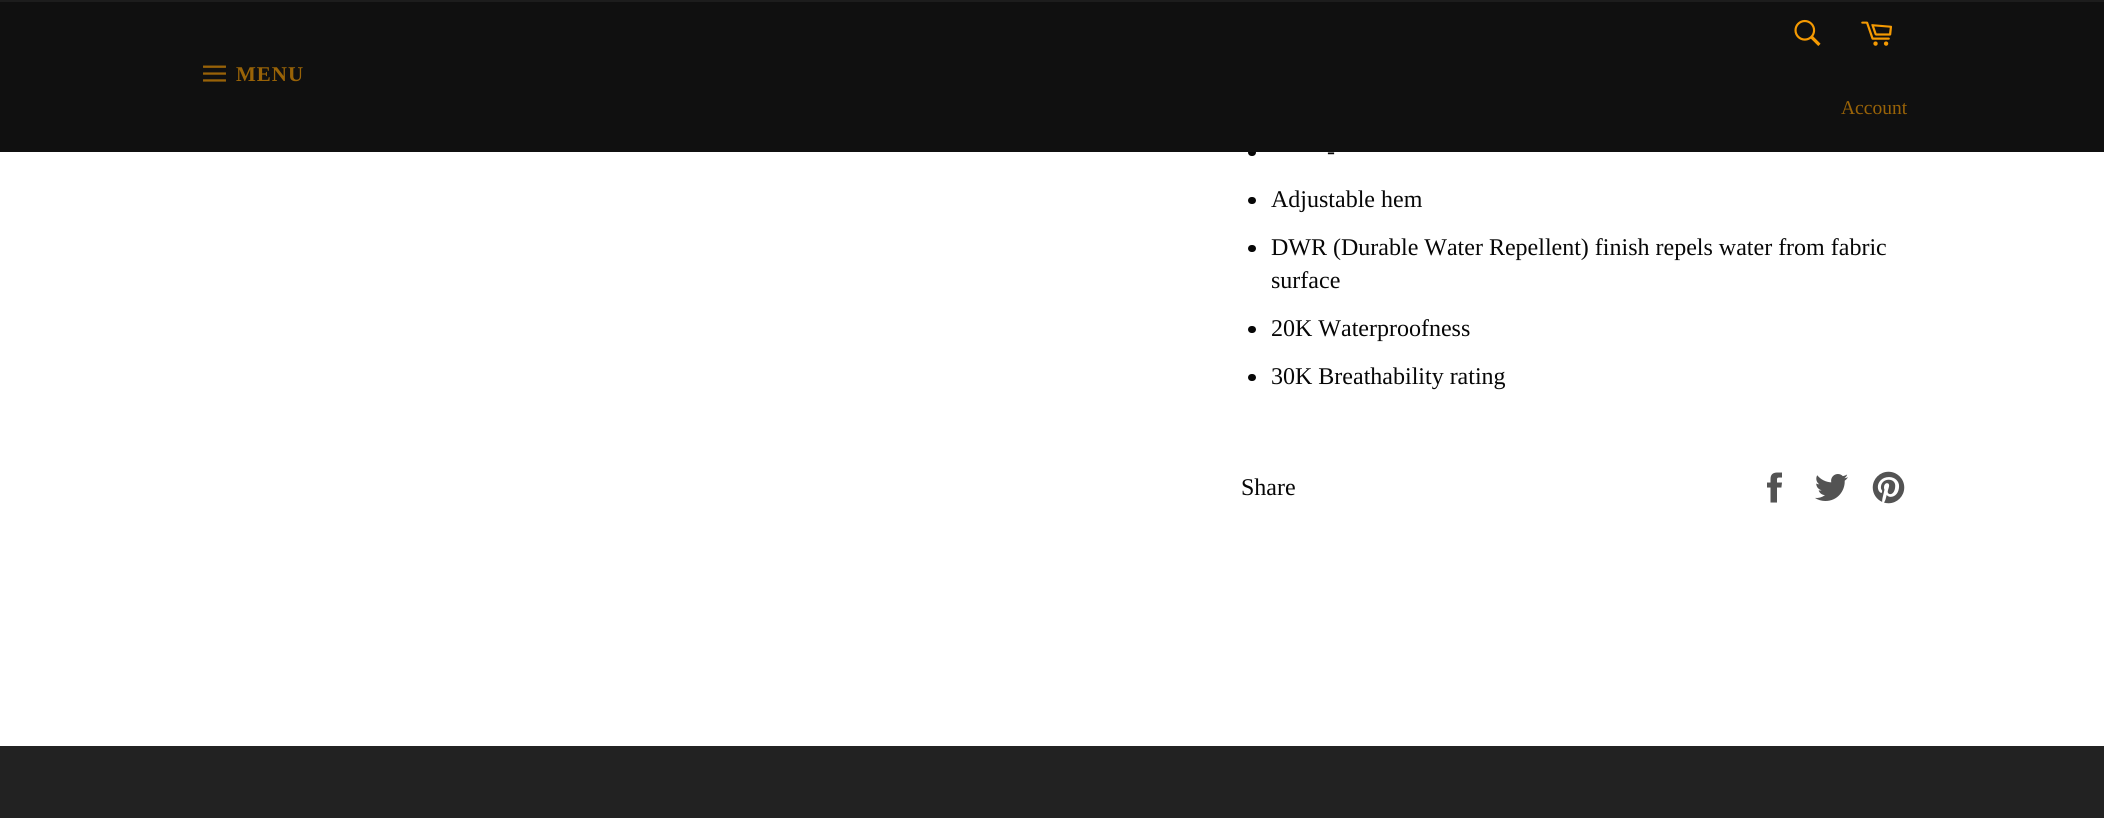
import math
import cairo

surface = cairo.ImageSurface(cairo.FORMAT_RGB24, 2104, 818)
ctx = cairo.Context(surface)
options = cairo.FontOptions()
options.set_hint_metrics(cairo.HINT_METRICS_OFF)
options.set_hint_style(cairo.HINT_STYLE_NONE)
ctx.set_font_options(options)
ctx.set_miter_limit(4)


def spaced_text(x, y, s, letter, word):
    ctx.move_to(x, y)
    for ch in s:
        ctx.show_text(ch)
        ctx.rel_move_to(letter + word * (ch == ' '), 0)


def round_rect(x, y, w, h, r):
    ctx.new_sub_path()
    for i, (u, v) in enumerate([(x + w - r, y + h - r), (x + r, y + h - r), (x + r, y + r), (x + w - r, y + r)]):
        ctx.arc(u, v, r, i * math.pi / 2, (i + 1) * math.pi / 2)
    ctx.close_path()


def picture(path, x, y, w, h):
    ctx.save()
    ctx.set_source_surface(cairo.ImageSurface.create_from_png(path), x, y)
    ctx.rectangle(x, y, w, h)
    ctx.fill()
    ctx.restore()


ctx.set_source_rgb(1, 1, 1)
ctx.paint()
ctx.set_source_rgb(0.031, 0.031, 0.031)
round_rect(1248, 149, 8, 7, 3.5)
ctx.fill()
ctx.set_source_rgb(0.063, 0.063, 0.063)
ctx.rectangle(0, 2, 2104, 150)
ctx.fill()
ctx.set_source_rgb(0.114, 0.114, 0.114)
ctx.rectangle(0, 0, 2104, 2)
ctx.fill()
picture("img1.png", 203, 65, 23, 17)
ctx.select_font_face("Liberation Serif", cairo.FONT_SLANT_NORMAL, cairo.FONT_WEIGHT_BOLD)
ctx.set_font_size(21)
ctx.set_source_rgb(0.6, 0.388, 0.031)
spaced_text(236, 81, "MENU", 1, 0)
picture("img2.png", 1794, 19, 27, 27)
picture("img3.png", 1861, 21, 31, 25)
ctx.select_font_face("Liberation Serif")
ctx.set_font_size(19.5)
ctx.move_to(1841, 114)
ctx.show_text("Account")
ctx.set_font_size(24)
ctx.set_source_rgb(0.031, 0.031, 0.031)
ctx.move_to(1327, 159)
ctx.show_text("-")
round_rect(1248, 197, 8, 7, 3.5)
ctx.fill()
ctx.move_to(1271, 207)
ctx.show_text("Adjustable hem")
round_rect(1248, 245, 8, 7, 3.5)
ctx.fill()
ctx.move_to(1271, 255)
ctx.show_text("DWR (Durable Water Repellent) finish repels water from fabric")
ctx.move_to(1271, 288)
ctx.show_text("surface")
round_rect(1248, 326, 8, 7, 3.5)
ctx.fill()
ctx.move_to(1271, 336)
ctx.show_text("20K Waterproofness")
round_rect(1248, 374, 8, 7, 3.5)
ctx.fill()
ctx.move_to(1271, 384)
ctx.show_text("30K Breathability rating")
ctx.move_to(1241, 495)
ctx.show_text("Share")
picture("img4.png", 1767, 472, 15, 31)
picture("img5.png", 1815, 474, 33, 27)
picture("img6.png", 1872, 471, 33, 33)
ctx.set_source_rgb(0.133, 0.133, 0.133)
ctx.rectangle(0, 746, 2104, 72)
ctx.fill()
surface.write_to_png("page.png")
